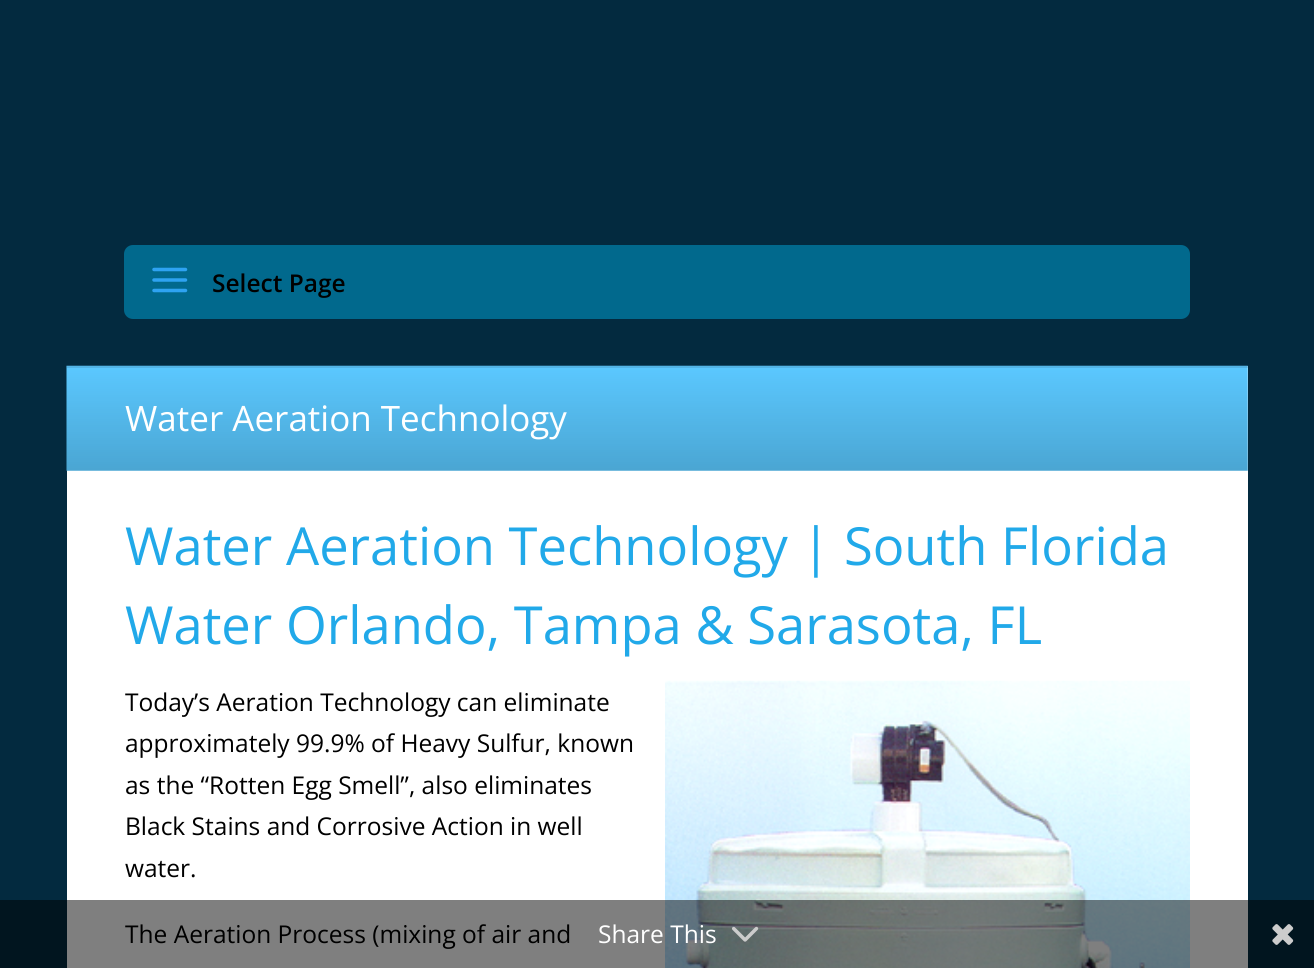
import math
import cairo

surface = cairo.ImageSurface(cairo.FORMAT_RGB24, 1314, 968)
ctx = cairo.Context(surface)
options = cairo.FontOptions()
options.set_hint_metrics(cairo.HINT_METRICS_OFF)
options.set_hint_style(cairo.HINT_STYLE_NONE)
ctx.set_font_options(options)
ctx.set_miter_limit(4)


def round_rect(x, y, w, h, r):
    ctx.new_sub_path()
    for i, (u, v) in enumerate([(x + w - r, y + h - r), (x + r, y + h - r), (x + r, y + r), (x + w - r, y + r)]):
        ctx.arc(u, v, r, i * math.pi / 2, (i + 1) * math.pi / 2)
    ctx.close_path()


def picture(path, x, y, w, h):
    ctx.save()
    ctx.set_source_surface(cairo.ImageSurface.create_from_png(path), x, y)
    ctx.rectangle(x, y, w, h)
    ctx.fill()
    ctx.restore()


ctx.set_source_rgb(0.012, 0.165, 0.247)
ctx.paint()
ctx.set_source_rgb(1, 1, 1)
ctx.rectangle(67, 366, 1181, 602)
ctx.fill()
picture("img2.png", 66, 365, 1182, 106)
ctx.set_source_rgba(0, 0, 0, 0.1)
ctx.new_path()
ctx.move_to(67, 366)
ctx.line_to(67, 368)
ctx.line_to(1248, 368)
ctx.line_to(1248, 2)
ctx.line_to(1248, 366)
ctx.close_path()
ctx.fill()
ctx.set_source_rgb(0.004, 0.412, 0.553)
round_rect(124, 245, 1066, 74, 9)
ctx.fill()
picture("img1.png", 152, 267, 36, 26)
ctx.select_font_face("Open Sans SemiBold")
ctx.set_font_size(24.5)
ctx.set_source_rgb(0, 0, 0)
ctx.move_to(212, 292)
ctx.show_text("Select Page")
ctx.select_font_face("Open Sans")
ctx.set_font_size(35)
ctx.set_source_rgb(1, 1, 1)
ctx.move_to(125, 431)
ctx.show_text("Water Aeration Technology")
ctx.set_font_size(52.5)
ctx.set_source_rgb(0.129, 0.663, 0.914)
ctx.move_to(125, 565)
ctx.show_text("Water Aeration Technology | South Florida")
ctx.move_to(125, 644)
ctx.show_text("Water Orlando, Tampa & Sarasota, FL")
ctx.set_font_size(24.5)
ctx.set_source_rgb(0, 0, 0)
ctx.move_to(125, 711)
ctx.show_text("Today’s Aeration Technology can eliminate")
picture("img3.png", 665, 680, 525, 288)
ctx.move_to(125, 752)
ctx.show_text("approximately 99.9% of Heavy Sulfur, known")
ctx.move_to(125, 794)
ctx.show_text("as the “Rotten Egg Smell”, also eliminates")
ctx.move_to(125, 835)
ctx.show_text("Black Stains and Corrosive Action in well")
ctx.move_to(125, 877)
ctx.show_text("water.")
ctx.move_to(125, 943)
ctx.show_text("The Aeration Process (mixing of air and")
ctx.set_source_rgba(0, 0, 0, 0.5)
ctx.rectangle(0, 900, 1314, 68)
ctx.fill()
ctx.set_source_rgb(1, 1, 1)
ctx.move_to(598, 943)
ctx.show_text("Share This")
picture("img4.png", 732, 926, 27, 16)
picture("img5.png", 1272, 924, 22, 21)
surface.write_to_png("page.png")
